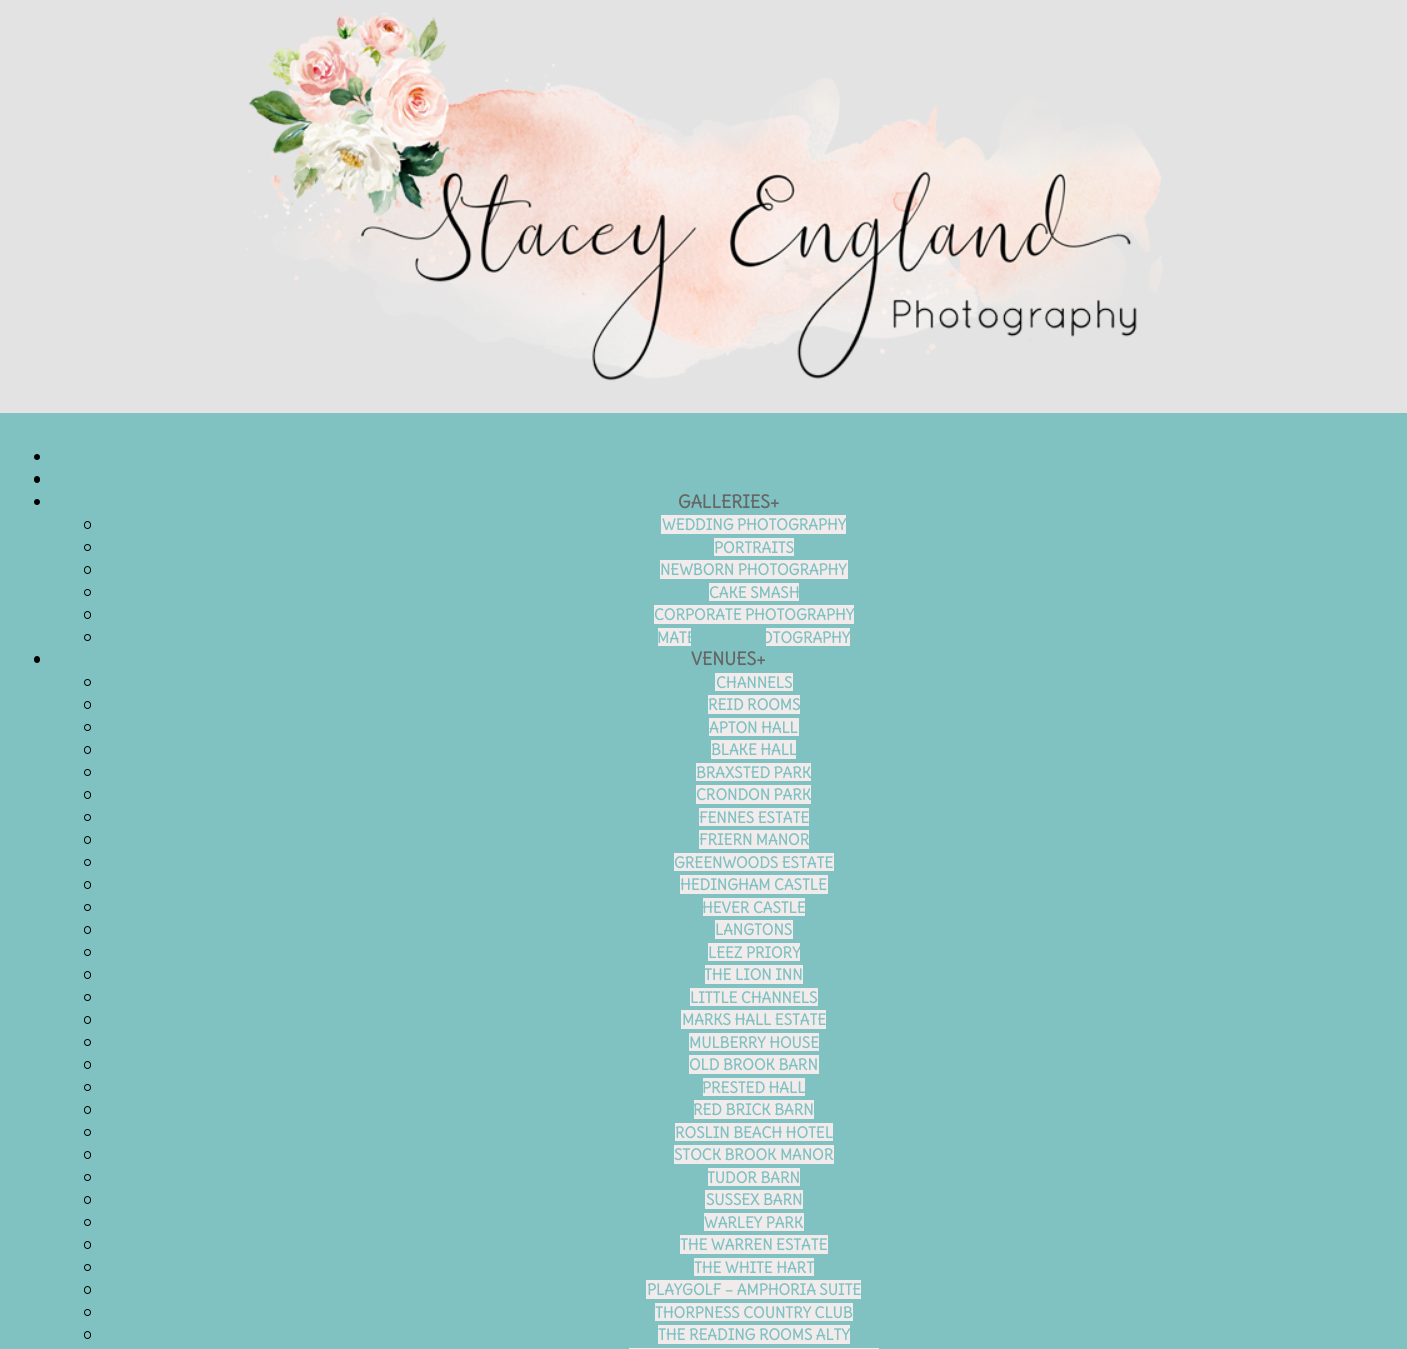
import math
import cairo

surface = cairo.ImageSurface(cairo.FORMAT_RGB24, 1407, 1349)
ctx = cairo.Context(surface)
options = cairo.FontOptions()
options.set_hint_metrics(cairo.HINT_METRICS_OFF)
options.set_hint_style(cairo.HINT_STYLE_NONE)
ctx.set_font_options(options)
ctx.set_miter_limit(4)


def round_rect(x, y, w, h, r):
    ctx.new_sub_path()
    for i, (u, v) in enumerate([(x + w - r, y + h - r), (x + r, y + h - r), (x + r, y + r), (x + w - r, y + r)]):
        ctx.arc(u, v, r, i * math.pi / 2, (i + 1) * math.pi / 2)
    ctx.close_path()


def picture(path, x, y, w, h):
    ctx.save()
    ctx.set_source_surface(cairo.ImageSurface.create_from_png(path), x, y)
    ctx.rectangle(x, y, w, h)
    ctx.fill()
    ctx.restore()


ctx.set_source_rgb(0.89, 0.89, 0.89)
ctx.paint()
picture("img1.png", 244, 12, 919, 369)
ctx.set_source_rgb(0.502, 0.761, 0.761)
ctx.rectangle(0, 413, 1407, 936)
ctx.fill()
ctx.set_source_rgb(0, 0, 0)
ctx.arc(37, 457, 3, 0, 2 * math.pi)
ctx.fill()
round_rect(34, 476, 6, 7, 3)
ctx.fill()
ctx.arc(37, 502, 3, 0, 2 * math.pi)
ctx.fill()
ctx.select_font_face("Delius", cairo.FONT_SLANT_NORMAL, cairo.FONT_WEIGHT_BOLD)
ctx.set_font_size(17.5)
ctx.set_source_rgb(0.4, 0.4, 0.4)
ctx.move_to(678, 508)
ctx.show_text("GALLERIES+")
round_rect(84.5, 521.5, 6, 7, 3)
ctx.set_source_rgb(0, 0, 0)
ctx.set_line_width(1)
ctx.stroke()
ctx.set_source_rgb(0.949, 0.918, 0.925)
ctx.rectangle(661, 515, 185, 19)
ctx.fill()
ctx.set_font_size(15)
ctx.set_source_rgb(0.502, 0.761, 0.761)
ctx.move_to(662, 530)
ctx.show_text("WEDDING PHOTOGRAPHY")
ctx.new_path()
ctx.arc(87.5, 547.5, 3, 0, 2 * math.pi)
ctx.set_source_rgb(0, 0, 0)
ctx.stroke()
ctx.set_source_rgb(0.949, 0.918, 0.925)
ctx.rectangle(714, 538, 80, 18)
ctx.fill()
ctx.set_source_rgb(0.502, 0.761, 0.761)
ctx.move_to(714, 553)
ctx.show_text("PORTRAITS")
round_rect(84.5, 566.5, 6, 7, 3)
ctx.set_source_rgb(0, 0, 0)
ctx.stroke()
ctx.set_source_rgb(0.949, 0.918, 0.925)
ctx.rectangle(660, 560, 188, 19)
ctx.fill()
ctx.set_source_rgb(0.502, 0.761, 0.761)
ctx.move_to(660, 575)
ctx.show_text("NEWBORN PHOTOGRAPHY")
ctx.new_path()
ctx.arc(87.5, 592.5, 3, 0, 2 * math.pi)
ctx.set_source_rgb(0, 0, 0)
ctx.stroke()
ctx.set_source_rgb(0.949, 0.918, 0.925)
ctx.rectangle(709, 583, 90, 18)
ctx.fill()
ctx.set_source_rgb(0.502, 0.761, 0.761)
ctx.move_to(709, 598)
ctx.show_text("CAKE SMASH")
round_rect(84.5, 611.5, 6, 7, 3)
ctx.set_source_rgb(0, 0, 0)
ctx.stroke()
ctx.set_source_rgb(0.949, 0.918, 0.925)
ctx.rectangle(654, 605, 200, 19)
ctx.fill()
ctx.set_source_rgb(0.502, 0.761, 0.761)
ctx.move_to(654, 620)
ctx.show_text("CORPORATE PHOTOGRAPHY")
ctx.new_path()
ctx.arc(87.5, 637.5, 3, 0, 2 * math.pi)
ctx.set_source_rgb(0, 0, 0)
ctx.stroke()
ctx.set_source_rgb(0.949, 0.918, 0.925)
ctx.rectangle(658, 628, 192, 18)
ctx.fill()
ctx.set_source_rgb(0.502, 0.761, 0.761)
ctx.move_to(657, 643)
ctx.show_text("MATE")
ctx.move_to(761, 643)
ctx.show_text("OTOGRAPHY")
ctx.set_source_rgb(0, 0, 0)
round_rect(34, 656, 6, 7, 3)
ctx.fill()
ctx.set_font_size(17.5)
ctx.set_source_rgb(0.4, 0.4, 0.4)
ctx.move_to(691, 665)
ctx.show_text("VENUES+")
ctx.set_source_rgb(0.502, 0.761, 0.761)
ctx.rectangle(691, 628, 75, 18)
ctx.fill()
ctx.arc(87.5, 682.5, 3, 0, 2 * math.pi)
ctx.set_source_rgb(0, 0, 0)
ctx.stroke()
ctx.set_source_rgb(0.949, 0.918, 0.925)
ctx.rectangle(715, 673, 78, 18)
ctx.fill()
ctx.set_font_size(15)
ctx.set_source_rgb(0.502, 0.761, 0.761)
ctx.move_to(716, 688)
ctx.show_text("CHANNELS")
round_rect(84.5, 701.5, 6, 7, 3)
ctx.set_source_rgb(0, 0, 0)
ctx.stroke()
ctx.set_source_rgb(0.949, 0.918, 0.925)
ctx.rectangle(708, 695, 92, 19)
ctx.fill()
ctx.set_source_rgb(0.502, 0.761, 0.761)
ctx.move_to(708, 710)
ctx.show_text("REID ROOMS")
ctx.new_path()
ctx.arc(87.5, 727.5, 3, 0, 2 * math.pi)
ctx.set_source_rgb(0, 0, 0)
ctx.stroke()
ctx.set_source_rgb(0.949, 0.918, 0.925)
ctx.rectangle(709, 718, 90, 18)
ctx.fill()
ctx.set_source_rgb(0.502, 0.761, 0.761)
ctx.move_to(709, 733)
ctx.show_text("APTON HALL")
round_rect(84.5, 746.5, 6, 7, 3)
ctx.set_source_rgb(0, 0, 0)
ctx.stroke()
ctx.set_source_rgb(0.949, 0.918, 0.925)
ctx.rectangle(711, 740, 85, 19)
ctx.fill()
ctx.set_source_rgb(0.502, 0.761, 0.761)
ctx.move_to(711, 755)
ctx.show_text("BLAKE HALL")
ctx.new_path()
ctx.arc(87.5, 772.5, 3, 0, 2 * math.pi)
ctx.set_source_rgb(0, 0, 0)
ctx.stroke()
ctx.set_source_rgb(0.949, 0.918, 0.925)
ctx.rectangle(696, 763, 115, 18)
ctx.fill()
ctx.set_source_rgb(0.502, 0.761, 0.761)
ctx.move_to(696, 778)
ctx.show_text("BRAXSTED PARK")
round_rect(84.5, 791.5, 6, 7, 3)
ctx.set_source_rgb(0, 0, 0)
ctx.stroke()
ctx.set_source_rgb(0.949, 0.918, 0.925)
ctx.rectangle(696, 785, 115, 19)
ctx.fill()
ctx.set_source_rgb(0.502, 0.761, 0.761)
ctx.move_to(696, 800)
ctx.show_text("CRONDON PARK")
ctx.new_path()
ctx.arc(87.5, 817.5, 3, 0, 2 * math.pi)
ctx.set_source_rgb(0, 0, 0)
ctx.stroke()
ctx.set_source_rgb(0.949, 0.918, 0.925)
ctx.rectangle(699, 808, 110, 18)
ctx.fill()
ctx.set_source_rgb(0.502, 0.761, 0.761)
ctx.move_to(699, 823)
ctx.show_text("FENNES ESTATE")
round_rect(84.5, 836.5, 6, 7, 3)
ctx.set_source_rgb(0, 0, 0)
ctx.stroke()
ctx.set_source_rgb(0.949, 0.918, 0.925)
ctx.rectangle(699, 830, 110, 19)
ctx.fill()
ctx.set_source_rgb(0.502, 0.761, 0.761)
ctx.move_to(699, 845)
ctx.show_text("FRIERN MANOR")
ctx.new_path()
ctx.arc(87.5, 862.5, 3, 0, 2 * math.pi)
ctx.set_source_rgb(0, 0, 0)
ctx.stroke()
ctx.set_source_rgb(0.949, 0.918, 0.925)
ctx.rectangle(674, 853, 160, 18)
ctx.fill()
ctx.set_source_rgb(0.502, 0.761, 0.761)
ctx.move_to(674, 868)
ctx.show_text("GREENWOODS ESTATE")
round_rect(84.5, 881.5, 6, 7, 3)
ctx.set_source_rgb(0, 0, 0)
ctx.stroke()
ctx.set_source_rgb(0.949, 0.918, 0.925)
ctx.rectangle(680, 875, 148, 19)
ctx.fill()
ctx.set_source_rgb(0.502, 0.761, 0.761)
ctx.move_to(680, 890)
ctx.show_text("HEDINGHAM CASTLE")
ctx.new_path()
ctx.arc(87.5, 907.5, 3, 0, 2 * math.pi)
ctx.set_source_rgb(0, 0, 0)
ctx.stroke()
ctx.set_source_rgb(0.949, 0.918, 0.925)
ctx.rectangle(703, 898, 102, 18)
ctx.fill()
ctx.set_source_rgb(0.502, 0.761, 0.761)
ctx.move_to(702, 913)
ctx.show_text("HEVER CASTLE")
round_rect(84.5, 926.5, 6, 7, 3)
ctx.set_source_rgb(0, 0, 0)
ctx.stroke()
ctx.set_source_rgb(0.949, 0.918, 0.925)
ctx.rectangle(715, 920, 78, 19)
ctx.fill()
ctx.set_source_rgb(0.502, 0.761, 0.761)
ctx.move_to(715, 935)
ctx.show_text("LANGTONS")
ctx.new_path()
ctx.arc(87.5, 952.5, 3, 0, 2 * math.pi)
ctx.set_source_rgb(0, 0, 0)
ctx.stroke()
ctx.set_source_rgb(0.949, 0.918, 0.925)
ctx.rectangle(708, 943, 92, 18)
ctx.fill()
ctx.set_source_rgb(0.502, 0.761, 0.761)
ctx.move_to(708, 958)
ctx.show_text("LEEZ PRIORY")
round_rect(84.5, 971.5, 6, 7, 3)
ctx.set_source_rgb(0, 0, 0)
ctx.stroke()
ctx.set_source_rgb(0.949, 0.918, 0.925)
ctx.rectangle(705, 965, 98, 19)
ctx.fill()
ctx.set_source_rgb(0.502, 0.761, 0.761)
ctx.move_to(704, 980)
ctx.show_text("THE LION INN")
ctx.new_path()
ctx.arc(87.5, 997.5, 3, 0, 2 * math.pi)
ctx.set_source_rgb(0, 0, 0)
ctx.stroke()
ctx.set_source_rgb(0.949, 0.918, 0.925)
ctx.rectangle(690, 988, 128, 18)
ctx.fill()
ctx.set_source_rgb(0.502, 0.761, 0.761)
ctx.move_to(690, 1003)
ctx.show_text("LITTLE CHANNELS")
round_rect(84.5, 1016.5, 6, 7, 3)
ctx.set_source_rgb(0, 0, 0)
ctx.stroke()
ctx.set_source_rgb(0.949, 0.918, 0.925)
ctx.rectangle(681, 1010, 145, 19)
ctx.fill()
ctx.set_source_rgb(0.502, 0.761, 0.761)
ctx.move_to(682, 1025)
ctx.show_text("MARKS HALL ESTATE")
ctx.new_path()
ctx.arc(87.5, 1042.5, 3, 0, 2 * math.pi)
ctx.set_source_rgb(0, 0, 0)
ctx.stroke()
ctx.set_source_rgb(0.949, 0.918, 0.925)
ctx.rectangle(689, 1033, 130, 18)
ctx.fill()
ctx.set_source_rgb(0.502, 0.761, 0.761)
ctx.move_to(689, 1048)
ctx.show_text("MULBERRY HOUSE")
round_rect(84.5, 1061.5, 6, 7, 3)
ctx.set_source_rgb(0, 0, 0)
ctx.stroke()
ctx.set_source_rgb(0.949, 0.918, 0.925)
ctx.rectangle(689, 1055, 130, 19)
ctx.fill()
ctx.set_source_rgb(0.502, 0.761, 0.761)
ctx.move_to(689, 1070)
ctx.show_text("OLD BROOK BARN")
ctx.new_path()
ctx.arc(87.5, 1087.5, 3, 0, 2 * math.pi)
ctx.set_source_rgb(0, 0, 0)
ctx.stroke()
ctx.set_source_rgb(0.949, 0.918, 0.925)
ctx.rectangle(703, 1078, 102, 18)
ctx.fill()
ctx.set_source_rgb(0.502, 0.761, 0.761)
ctx.move_to(702, 1093)
ctx.show_text("PRESTED HALL")
round_rect(84.5, 1106.5, 6, 7, 3)
ctx.set_source_rgb(0, 0, 0)
ctx.stroke()
ctx.set_source_rgb(0.949, 0.918, 0.925)
ctx.rectangle(694, 1100, 120, 19)
ctx.fill()
ctx.set_source_rgb(0.502, 0.761, 0.761)
ctx.move_to(693, 1115)
ctx.show_text("RED BRICK BARN")
ctx.new_path()
ctx.arc(87.5, 1132.5, 3, 0, 2 * math.pi)
ctx.set_source_rgb(0, 0, 0)
ctx.stroke()
ctx.set_source_rgb(0.949, 0.918, 0.925)
ctx.rectangle(675, 1123, 158, 18)
ctx.fill()
ctx.set_source_rgb(0.502, 0.761, 0.761)
ctx.move_to(675, 1138)
ctx.show_text("ROSLIN BEACH HOTEL")
round_rect(84.5, 1151.5, 6, 7, 3)
ctx.set_source_rgb(0, 0, 0)
ctx.stroke()
ctx.set_source_rgb(0.949, 0.918, 0.925)
ctx.rectangle(674, 1145, 160, 19)
ctx.fill()
ctx.set_source_rgb(0.502, 0.761, 0.761)
ctx.move_to(674, 1160)
ctx.show_text("STOCK BROOK MANOR")
ctx.new_path()
ctx.arc(87.5, 1177.5, 3, 0, 2 * math.pi)
ctx.set_source_rgb(0, 0, 0)
ctx.stroke()
ctx.set_source_rgb(0.949, 0.918, 0.925)
ctx.rectangle(708, 1168, 92, 18)
ctx.fill()
ctx.set_source_rgb(0.502, 0.761, 0.761)
ctx.move_to(707, 1183)
ctx.show_text("TUDOR BARN")
round_rect(84.5, 1196.5, 6, 7, 3)
ctx.set_source_rgb(0, 0, 0)
ctx.stroke()
ctx.set_source_rgb(0.949, 0.918, 0.925)
ctx.rectangle(705, 1190, 98, 19)
ctx.fill()
ctx.set_source_rgb(0.502, 0.761, 0.761)
ctx.move_to(706, 1205)
ctx.show_text("SUSSEX BARN")
ctx.new_path()
ctx.arc(87.5, 1222.5, 3, 0, 2 * math.pi)
ctx.set_source_rgb(0, 0, 0)
ctx.stroke()
ctx.set_source_rgb(0.949, 0.918, 0.925)
ctx.rectangle(704, 1213, 100, 18)
ctx.fill()
ctx.set_source_rgb(0.502, 0.761, 0.761)
ctx.move_to(704, 1228)
ctx.show_text("WARLEY PARK")
round_rect(84.5, 1241.5, 6, 7, 3)
ctx.set_source_rgb(0, 0, 0)
ctx.stroke()
ctx.set_source_rgb(0.949, 0.918, 0.925)
ctx.rectangle(680, 1235, 148, 19)
ctx.fill()
ctx.set_source_rgb(0.502, 0.761, 0.761)
ctx.move_to(680, 1250)
ctx.show_text("THE WARREN ESTATE")
ctx.new_path()
ctx.arc(87.5, 1267.5, 3, 0, 2 * math.pi)
ctx.set_source_rgb(0, 0, 0)
ctx.stroke()
ctx.set_source_rgb(0.949, 0.918, 0.925)
ctx.rectangle(694, 1258, 120, 18)
ctx.fill()
ctx.set_source_rgb(0.502, 0.761, 0.761)
ctx.move_to(694, 1273)
ctx.show_text("THE WHITE HART")
round_rect(84.5, 1286.5, 6, 7, 3)
ctx.set_source_rgb(0, 0, 0)
ctx.stroke()
ctx.set_source_rgb(0.949, 0.918, 0.925)
ctx.rectangle(646, 1280, 215, 19)
ctx.fill()
ctx.set_source_rgb(0.502, 0.761, 0.761)
ctx.move_to(647, 1295)
ctx.show_text("PLAYGOLF – AMPHORIA SUITE")
ctx.new_path()
ctx.arc(87.5, 1312.5, 3, 0, 2 * math.pi)
ctx.set_source_rgb(0, 0, 0)
ctx.stroke()
ctx.set_source_rgb(0.949, 0.918, 0.925)
ctx.rectangle(655, 1303, 198, 18)
ctx.fill()
ctx.set_source_rgb(0.502, 0.761, 0.761)
ctx.move_to(655, 1318)
ctx.show_text("THORPNESS COUNTRY CLUB")
round_rect(84.5, 1331.5, 6, 7, 3)
ctx.set_source_rgb(0, 0, 0)
ctx.stroke()
ctx.set_source_rgb(0.949, 0.918, 0.925)
ctx.rectangle(658, 1325, 192, 19)
ctx.fill()
ctx.set_source_rgb(0.502, 0.761, 0.761)
ctx.move_to(658, 1340)
ctx.show_text("THE READING ROOMS ALTY")
ctx.set_source_rgb(0.949, 0.918, 0.925)
ctx.rectangle(629, 1348, 250, 1)
ctx.fill()
surface.write_to_png("page.png")
